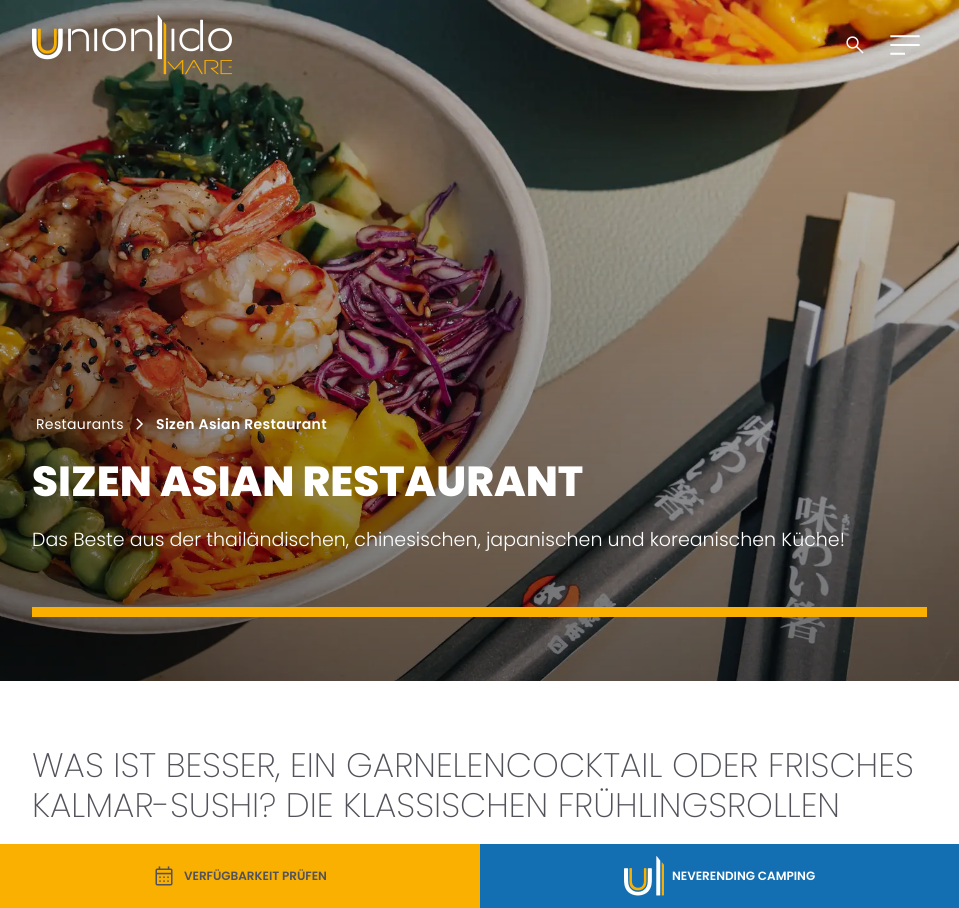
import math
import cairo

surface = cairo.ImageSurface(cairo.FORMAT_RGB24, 959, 908)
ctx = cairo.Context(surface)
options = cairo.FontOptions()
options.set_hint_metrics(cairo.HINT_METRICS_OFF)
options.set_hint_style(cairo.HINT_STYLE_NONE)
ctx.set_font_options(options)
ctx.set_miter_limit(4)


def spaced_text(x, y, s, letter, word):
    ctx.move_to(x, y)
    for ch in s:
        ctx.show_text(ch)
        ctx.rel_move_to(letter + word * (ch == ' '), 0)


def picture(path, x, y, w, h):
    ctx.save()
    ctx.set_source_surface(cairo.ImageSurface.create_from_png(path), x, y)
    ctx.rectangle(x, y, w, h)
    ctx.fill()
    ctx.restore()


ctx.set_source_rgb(1, 1, 1)
ctx.paint()
picture("img4.png", 0, 0, 959, 681)
picture("img1.png", 32, 15, 200, 60)
picture("img2.png", 846, 36, 18, 18)
picture("img3.png", 890, 35, 30, 20)
ctx.select_font_face("Poppins")
ctx.set_font_size(14)
ctx.set_source_rgb(1, 1, 1)
spaced_text(36, 429, "Restaurants", 0.35, 0)
picture("img5.png", 136, 418, 7, 12)
ctx.select_font_face("Poppins SemiBold")
spaced_text(156, 429, "Sizen Asian Restaurant", 0.35, 0)
ctx.select_font_face("Poppins ExtraBold")
ctx.set_font_size(42)
ctx.move_to(32, 496)
ctx.show_text("SIZEN ASIAN RESTAURANT")
ctx.select_font_face("Poppins Light")
ctx.set_font_size(19)
ctx.move_to(32, 546)
ctx.show_text("Das Beste aus der thailändischen, chinesischen, japanischen und koreanischen Küche!")
ctx.set_source_rgb(0.976, 0.69, 0)
ctx.rectangle(32, 607, 895, 10)
ctx.fill()
ctx.select_font_face("Poppins ExtraLight")
ctx.set_font_size(34)
ctx.set_source_rgb(0.322, 0.322, 0.357)
ctx.move_to(32, 777)
ctx.show_text("WAS IST BESSER, EIN GARNELENCOCKTAIL ODER FRISCHES")
ctx.move_to(32, 817)
ctx.show_text("KALMAR-SUSHI? DIE KLASSISCHEN FRÜHLINGSROLLEN")
ctx.set_source_rgb(0.976, 0.69, 0)
ctx.rectangle(0, 844, 480, 64)
ctx.fill()
picture("img6.png", 155, 866, 18, 20)
ctx.select_font_face("Poppins SemiBold")
ctx.set_font_size(12)
ctx.set_source_rgb(0.322, 0.322, 0.357)
ctx.move_to(184, 880)
ctx.show_text("VERFÜGBARKEIT PRÜFEN")
ctx.set_source_rgb(0.078, 0.435, 0.698)
ctx.rectangle(480, 844, 479, 64)
ctx.fill()
picture("img7.png", 624, 856, 40, 40)
ctx.set_source_rgb(1, 1, 1)
ctx.move_to(672, 880)
ctx.show_text("NEVERENDING CAMPING")
surface.write_to_png("page.png")
